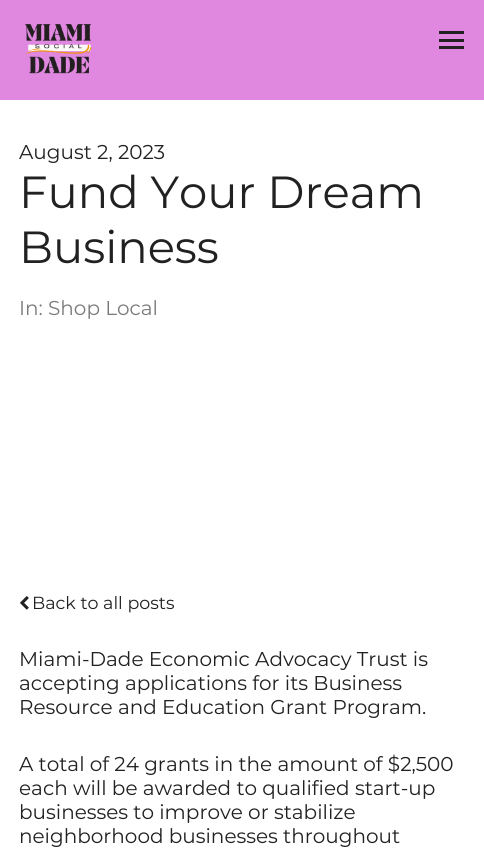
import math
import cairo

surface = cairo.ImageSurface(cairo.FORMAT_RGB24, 484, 855)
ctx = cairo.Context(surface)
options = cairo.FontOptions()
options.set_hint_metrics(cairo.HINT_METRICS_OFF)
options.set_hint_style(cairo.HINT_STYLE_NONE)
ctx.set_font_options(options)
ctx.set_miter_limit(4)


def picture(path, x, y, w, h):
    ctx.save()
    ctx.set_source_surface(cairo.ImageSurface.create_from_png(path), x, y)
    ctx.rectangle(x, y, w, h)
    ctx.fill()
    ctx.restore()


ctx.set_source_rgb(1, 1, 1)
ctx.paint()
ctx.set_source_rgb(0.878, 0.529, 0.878)
ctx.rectangle(0, 0, 484, 100)
ctx.fill()
picture("img1.png", 25, 24, 67, 50)
ctx.set_source_rgb(0.129, 0.129, 0.129)
ctx.rectangle(439, 31, 25, 3)
ctx.fill()
ctx.rectangle(439, 39, 25, 3)
ctx.fill()
ctx.rectangle(439, 46, 25, 3)
ctx.fill()
ctx.select_font_face("Montserrat")
ctx.set_font_size(20)
ctx.move_to(19, 159)
ctx.show_text("August 2, 2023")
ctx.set_font_size(45)
ctx.move_to(19, 208)
ctx.show_text("Fund Your Dream")
ctx.move_to(19, 263)
ctx.show_text("Business")
ctx.set_font_size(20)
ctx.set_source_rgb(0.478, 0.478, 0.478)
ctx.move_to(19, 315)
ctx.show_text("In: Shop Local")
picture("img2.png", 20, 596, 9, 14)
ctx.set_font_size(17.5)
ctx.set_source_rgb(0.129, 0.129, 0.129)
ctx.move_to(32, 609)
ctx.show_text("Back to all posts")
ctx.set_font_size(20)
ctx.move_to(19, 666)
ctx.show_text("Miami-Dade Economic Advocacy Trust is")
ctx.move_to(19, 690)
ctx.show_text("accepting applications for its Business")
ctx.move_to(19, 714)
ctx.show_text("Resource and Education Grant Program.")
ctx.move_to(19, 771)
ctx.show_text("A total of 24 grants in the amount of $2,500")
ctx.move_to(19, 795)
ctx.show_text("each will be awarded to qualified start-up")
ctx.move_to(19, 819)
ctx.show_text("businesses to improve or stabilize")
ctx.move_to(19, 843)
ctx.show_text("neighborhood businesses throughout")
surface.write_to_png("page.png")
